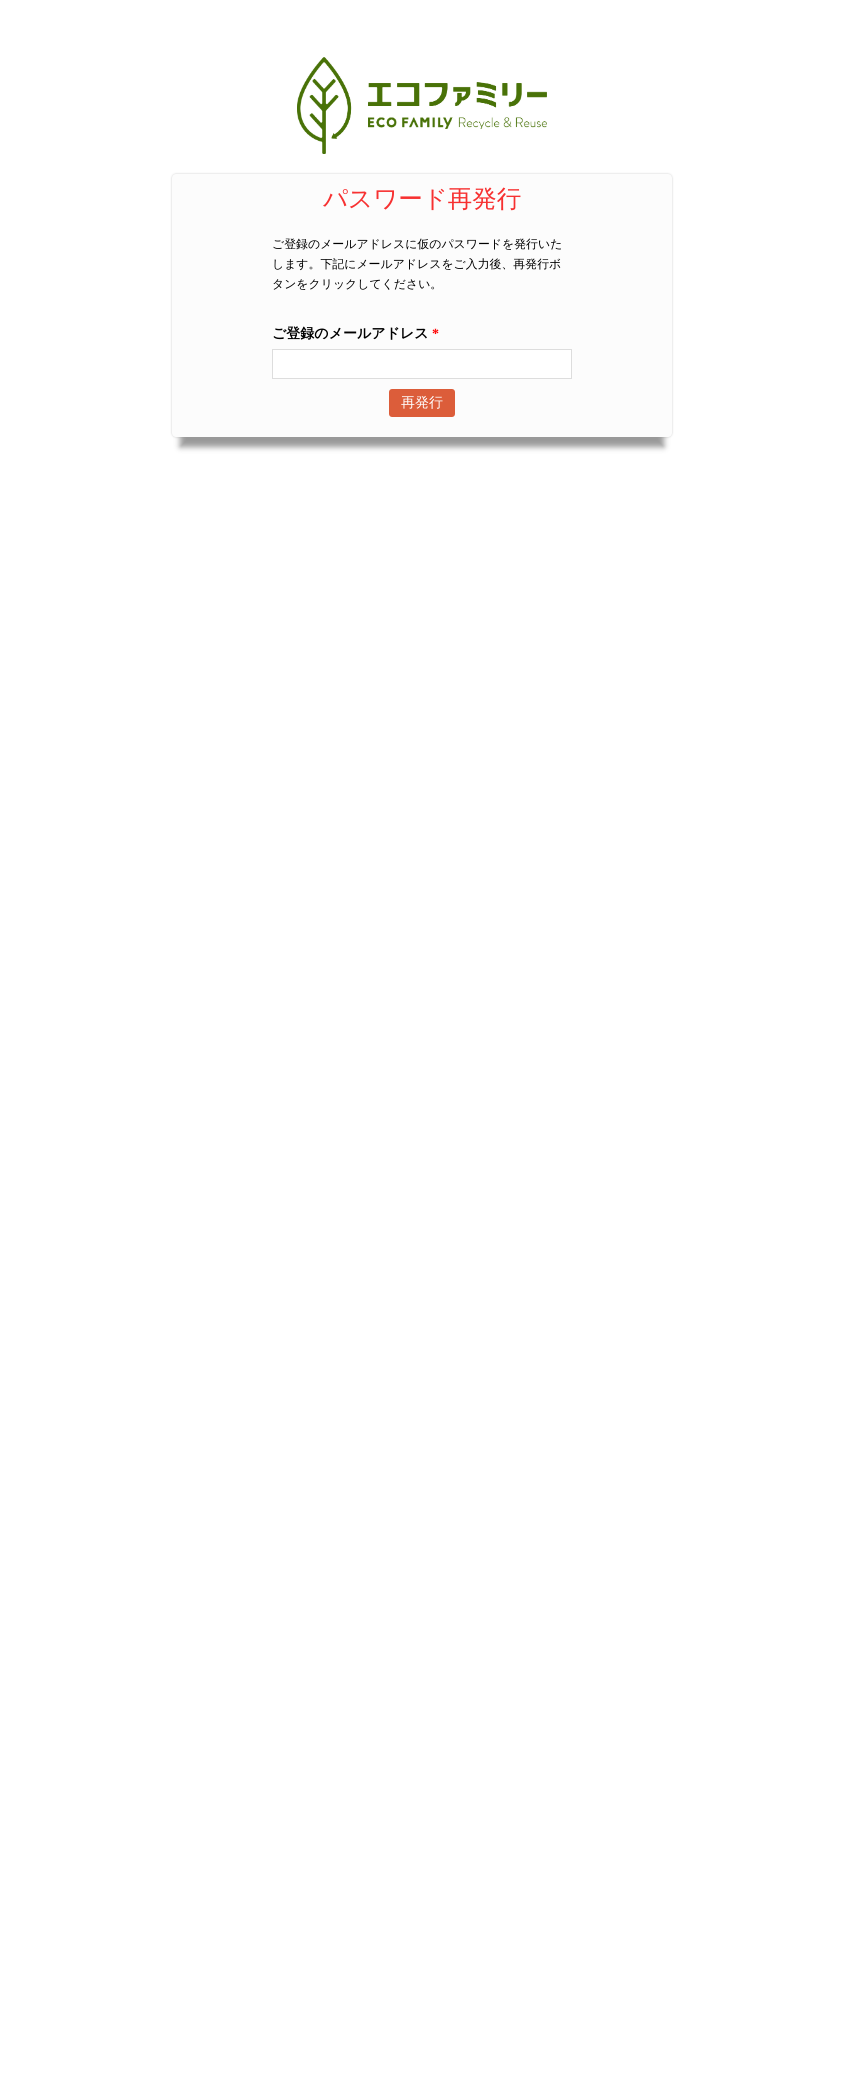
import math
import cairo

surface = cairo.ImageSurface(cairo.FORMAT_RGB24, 844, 2100)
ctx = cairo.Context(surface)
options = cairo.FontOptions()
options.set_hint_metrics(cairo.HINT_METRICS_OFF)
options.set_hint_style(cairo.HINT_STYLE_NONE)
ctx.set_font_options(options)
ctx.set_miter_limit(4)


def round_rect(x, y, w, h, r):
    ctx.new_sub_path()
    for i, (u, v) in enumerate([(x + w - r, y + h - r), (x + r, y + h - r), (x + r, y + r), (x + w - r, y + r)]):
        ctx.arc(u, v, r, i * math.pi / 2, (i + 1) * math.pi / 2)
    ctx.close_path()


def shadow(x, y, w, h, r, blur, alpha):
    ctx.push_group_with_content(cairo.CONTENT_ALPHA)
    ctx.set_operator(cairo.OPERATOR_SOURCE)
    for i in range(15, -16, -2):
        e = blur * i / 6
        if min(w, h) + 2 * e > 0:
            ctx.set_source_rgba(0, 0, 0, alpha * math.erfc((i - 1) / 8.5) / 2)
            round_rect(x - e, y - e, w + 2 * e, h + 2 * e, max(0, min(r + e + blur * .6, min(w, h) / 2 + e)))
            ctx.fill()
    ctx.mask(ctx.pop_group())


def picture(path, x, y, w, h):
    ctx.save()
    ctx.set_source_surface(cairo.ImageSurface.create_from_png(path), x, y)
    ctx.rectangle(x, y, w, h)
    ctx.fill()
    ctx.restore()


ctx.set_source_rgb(1, 1, 1)
ctx.paint()
picture("img1.png", 297, 57, 250, 97)
ctx.set_source_rgb(0.8, 0.8, 0.8)
shadow(172, 174, 500, 263, 4, 1, 1)
ctx.set_source_rgb(0.6, 0.6, 0.6)
shadow(180, 200, 484, 247, 0, 3, 1)
ctx.set_source_rgb(0.988, 0.988, 0.988)
round_rect(172, 174, 500, 263, 4)
ctx.fill()
ctx.select_font_face("WenQuanYi Zen Hei Medium")
ctx.set_font_size(24.5)
ctx.set_source_rgb(0.965, 0.192, 0.192)
ctx.move_to(323, 207)
ctx.show_text("パスワード再発行")
ctx.set_font_size(11.9)
ctx.set_source_rgb(0, 0, 0)
ctx.move_to(272, 248)
ctx.show_text("ご登録のメールアドレスに仮のパスワードを発行いた")
ctx.move_to(272, 268)
ctx.show_text("します。下記にメールアドレスをご入力後、再発行ボ")
ctx.move_to(272, 288)
ctx.show_text("タンをクリックしてください。")
ctx.select_font_face("WenQuanYi Zen Hei", cairo.FONT_SLANT_NORMAL, cairo.FONT_WEIGHT_BOLD)
ctx.set_font_size(14)
ctx.move_to(272, 338)
ctx.show_text("ご登録のメールアドレス")
ctx.select_font_face("Liberation Serif", cairo.FONT_SLANT_NORMAL, cairo.FONT_WEIGHT_BOLD)
ctx.set_source_rgb(1, 0, 0)
ctx.move_to(432, 338)
ctx.show_text("*")
ctx.set_source_rgb(1, 1, 1)
ctx.rectangle(272.5, 349.5, 299, 29)
ctx.fill_preserve()
ctx.set_source_rgb(0.867, 0.867, 0.867)
ctx.set_line_width(1)
ctx.stroke()
ctx.set_source_rgb(0.863, 0.365, 0.227)
round_rect(389, 389, 66, 28, 3)
ctx.fill()
ctx.select_font_face("WenQuanYi Zen Hei Medium")
ctx.set_source_rgb(1, 1, 1)
ctx.move_to(401, 407)
ctx.show_text("再発行")
surface.write_to_png("page.png")
